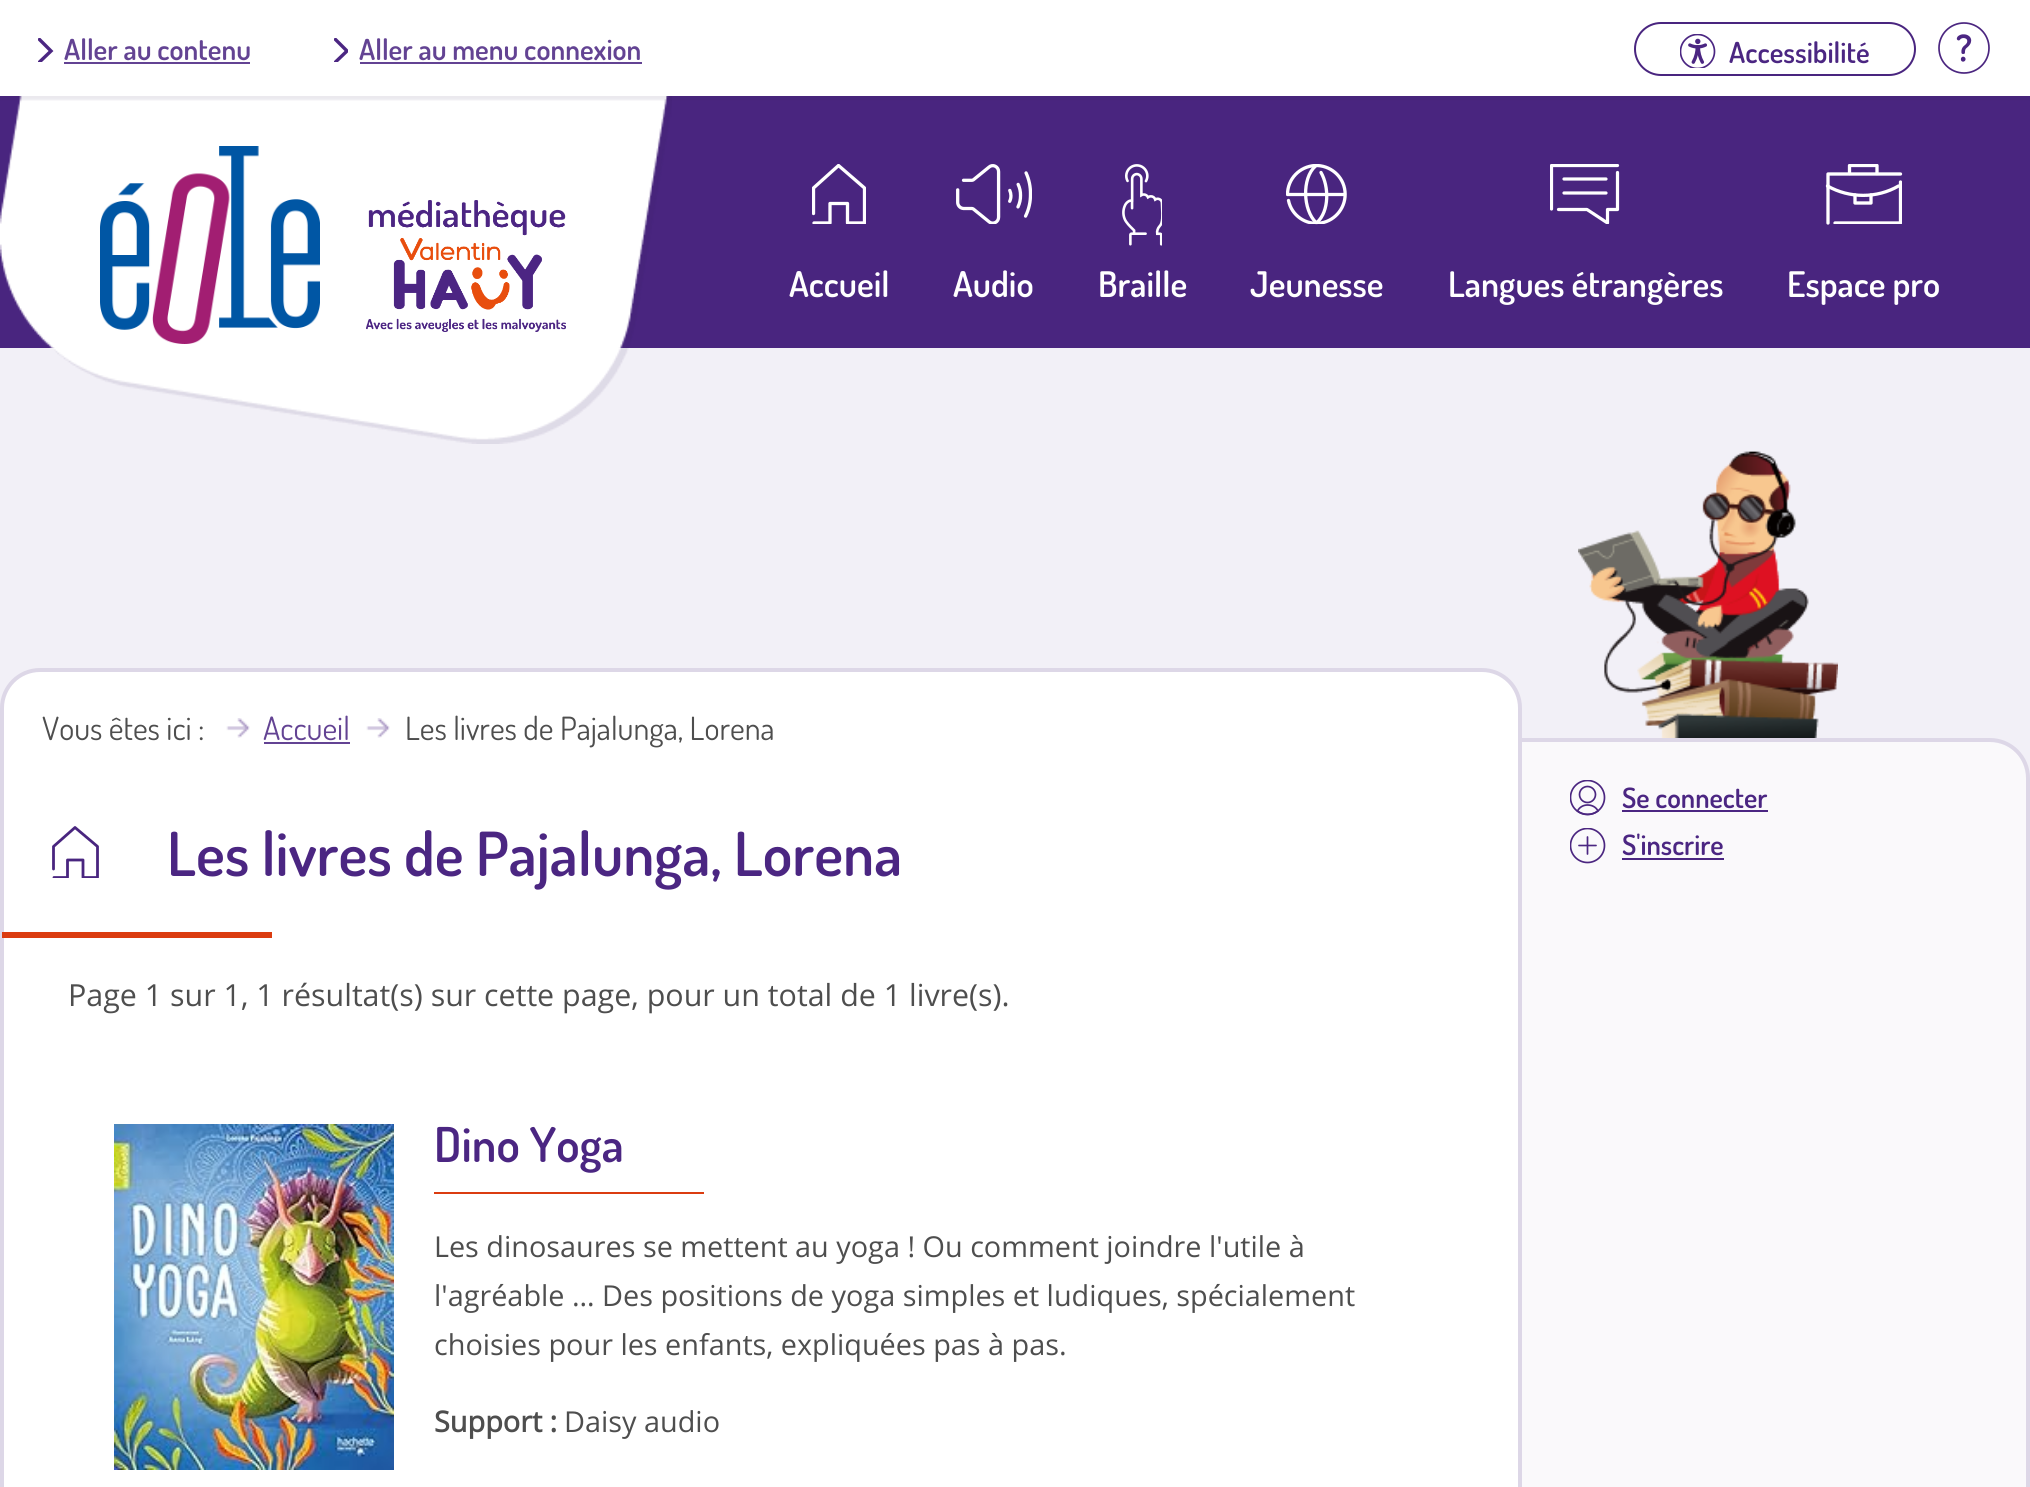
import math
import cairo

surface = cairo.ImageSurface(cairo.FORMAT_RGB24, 2030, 1487)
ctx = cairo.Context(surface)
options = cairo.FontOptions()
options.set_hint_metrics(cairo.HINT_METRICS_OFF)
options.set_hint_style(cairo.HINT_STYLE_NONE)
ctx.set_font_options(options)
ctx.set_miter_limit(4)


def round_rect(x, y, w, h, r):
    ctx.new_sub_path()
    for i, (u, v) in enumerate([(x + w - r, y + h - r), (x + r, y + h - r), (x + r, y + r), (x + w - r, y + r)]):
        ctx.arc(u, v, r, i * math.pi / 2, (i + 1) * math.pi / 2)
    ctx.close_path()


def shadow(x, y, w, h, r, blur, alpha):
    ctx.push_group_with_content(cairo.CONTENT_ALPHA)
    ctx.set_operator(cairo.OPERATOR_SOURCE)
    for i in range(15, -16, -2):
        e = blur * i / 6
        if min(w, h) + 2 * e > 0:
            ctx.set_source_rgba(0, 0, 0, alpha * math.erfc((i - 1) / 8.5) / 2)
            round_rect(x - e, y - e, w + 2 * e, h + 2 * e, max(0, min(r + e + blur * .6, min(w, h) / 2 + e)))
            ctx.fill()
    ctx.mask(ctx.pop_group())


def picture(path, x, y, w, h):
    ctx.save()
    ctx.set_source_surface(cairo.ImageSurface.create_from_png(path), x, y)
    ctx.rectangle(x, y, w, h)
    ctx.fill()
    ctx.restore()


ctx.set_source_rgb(0.949, 0.941, 0.965)
ctx.paint()
ctx.set_source_rgb(1, 1, 1)
ctx.rectangle(0, 0, 2030, 96)
ctx.fill()
ctx.set_source_rgb(0.286, 0.145, 0.498)
ctx.rectangle(0, 96, 2030, 252)
ctx.fill()
picture("img3.png", 0, 96, 672, 348)
ctx.save()
ctx.rectangle(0, 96, 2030, 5)
ctx.clip()
ctx.set_source_rgb(0.188, 0.114, 0.337)
shadow(0, 4, 2030, 96, 0, 1, 0.1)
ctx.restore()
ctx.save()
ctx.rectangle(38, 38, 16, 24)
ctx.clip()
ctx.new_path()
ctx.move_to(39.5, 39.5)
ctx.line_to(51, 51)
ctx.line_to(39.5, 62)
ctx.set_source_rgb(0.294, 0.149, 0.51)
ctx.set_line_width(3.4)
ctx.set_line_cap(cairo.LINE_CAP_ROUND)
ctx.stroke()
ctx.restore()
ctx.select_font_face("Dosis SemiBold")
ctx.set_font_size(28.8)
ctx.set_source_rgb(0.388, 0.263, 0.576)
ctx.move_to(64, 60)
ctx.show_text("Aller au contenu")
ctx.rectangle(64, 62, 186, 2)
ctx.fill()
ctx.save()
ctx.rectangle(334, 38, 14, 24)
ctx.clip()
ctx.new_path()
ctx.move_to(335.5, 39.5)
ctx.line_to(347, 51)
ctx.line_to(335.5, 62)
ctx.set_source_rgb(0.294, 0.149, 0.51)
ctx.set_line_width(3.4)
ctx.set_line_cap(cairo.LINE_CAP_ROUND)
ctx.stroke()
ctx.restore()
ctx.move_to(359, 60)
ctx.show_text("Aller au menu connexion")
ctx.rectangle(360, 62, 282, 2)
ctx.fill()
round_rect(1635, 23, 280, 52, 26)
ctx.set_source_rgb(0.286, 0.145, 0.498)
ctx.stroke()
picture("img1.png", 1680, 34, 36, 34)
ctx.set_source_rgb(0.294, 0.149, 0.51)
ctx.move_to(1729, 63)
ctx.show_text("Accessibilité")
picture("img2.png", 1938, 22, 52, 52)
picture("img4.png", 100, 146, 220, 198)
picture("img5.png", 366, 200, 200, 132)
ctx.save()
ctx.rectangle(812, 164, 54, 60)
ctx.clip()
ctx.new_path()
ctx.move_to(813.5, 213.5)
ctx.line_to(813.5, 188)
ctx.line_to(838.5, 165.5)
ctx.line_to(864.5, 188)
ctx.line_to(864.5, 223)
ctx.line_to(847.5, 223)
ctx.line_to(847.5, 203.5)
ctx.line_to(830, 203.5)
ctx.line_to(830, 223)
ctx.line_to(814, 223)
ctx.set_source_rgb(1, 1, 1)
ctx.set_line_width(3.3)
ctx.set_line_cap(cairo.LINE_CAP_ROUND)
ctx.set_line_join(cairo.LINE_JOIN_ROUND)
ctx.stroke()
ctx.restore()
ctx.set_font_size(35.25)
ctx.set_source_rgb(1, 1, 1)
ctx.move_to(789, 297)
ctx.show_text("Accueil")
picture("img6.png", 956, 164, 76, 60)
ctx.move_to(953, 297)
ctx.show_text("Audio")
picture("img7.png", 1122, 164, 40, 82)
ctx.move_to(1098, 297)
ctx.show_text("Braille")
ctx.save()
ctx.rectangle(1286, 164, 62, 60)
ctx.clip()
ctx.new_path()
ctx.move_to(1288.5, 200.5)
ctx.curve_to(1291.5, 215.5, 1306, 225.5, 1321, 223)
ctx.curve_to(1336, 220.5, 1346.5, 206.5, 1345, 191.5)
ctx.curve_to(1343.5, 176, 1330, 165, 1315, 165.5)
ctx.curve_to(1299.5, 166.5, 1287.5, 179, 1287.5, 194.5)
ctx.line_to(1345, 194.5)
ctx.set_line_width(3.3)
ctx.set_line_cap(cairo.LINE_CAP_ROUND)
ctx.set_line_join(cairo.LINE_JOIN_ROUND)
ctx.stroke()
ctx.restore()
ctx.new_path()
ctx.move_to(1315.5, 166)
ctx.curve_to(1301.5, 178.5, 1303, 210, 1316, 222.5)
ctx.move_to(1317, 222.5)
ctx.curve_to(1329.5, 211, 1329, 186.5, 1321, 172.5)
ctx.set_line_width(3.3)
ctx.set_line_cap(cairo.LINE_CAP_ROUND)
ctx.set_line_join(cairo.LINE_JOIN_ROUND)
ctx.stroke()
ctx.move_to(1250, 297)
ctx.show_text("Jeunesse")
ctx.save()
ctx.rectangle(1550, 164, 70, 60)
ctx.clip()
ctx.new_path()
ctx.move_to(1617.5, 165.5)
ctx.line_to(1551.5, 165.5)
ctx.line_to(1551.5, 209)
ctx.move_to(1558.5, 209.5)
ctx.line_to(1587, 209.5)
ctx.line_to(1607.5, 223)
ctx.line_to(1607.5, 209.5)
ctx.line_to(1617.5, 209.5)
ctx.line_to(1617.5, 172.5)
ctx.move_to(1564, 179)
ctx.line_to(1606, 179)
ctx.move_to(1564, 193)
ctx.line_to(1606, 193)
ctx.set_line_width(3.2)
ctx.stroke()
ctx.restore()
ctx.move_to(1448, 297)
ctx.show_text("Langues étrangères")
ctx.save()
ctx.rectangle(1826, 164, 76, 60)
ctx.clip()
ctx.new_path()
ctx.move_to(1900.5, 182)
ctx.line_to(1900.5, 223)
ctx.line_to(1835, 223)
ctx.stroke()
ctx.restore()
ctx.new_path()
ctx.move_to(1828, 223)
ctx.line_to(1828, 174)
ctx.line_to(1900.5, 174)
ctx.stroke()
ctx.save()
ctx.rectangle(1826, 164, 76, 60)
ctx.clip()
ctx.new_path()
ctx.move_to(1849.5, 173.5)
ctx.line_to(1849.5, 165.5)
ctx.line_to(1877, 165.5)
ctx.line_to(1877, 173.5)
ctx.stroke()
ctx.restore()
ctx.new_path()
ctx.move_to(1827.5, 186)
ctx.curve_to(1849.5, 198.5, 1877, 198.5, 1898.5, 186)
ctx.stroke()
ctx.new_path()
ctx.move_to(1871, 195)
ctx.line_to(1871, 203)
ctx.line_to(1855, 203)
ctx.line_to(1855, 195)
ctx.stroke()
ctx.move_to(1787, 297)
ctx.show_text("Espace pro")
picture("img8.png", 1578, 451, 260, 287)
ctx.new_path()
ctx.move_to(40, 670)
ctx.line_to(1482, 670)
ctx.curve_to(1503, 670, 1520, 687, 1520, 708)
ctx.line_to(1520, 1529)
ctx.line_to(2, 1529)
ctx.line_to(2, 708)
ctx.curve_to(2, 687, 19, 670, 40, 670)
ctx.close_path()
ctx.fill_preserve()
ctx.set_source_rgb(0.867, 0.843, 0.906)
ctx.set_line_width(4)
ctx.set_line_cap(cairo.LINE_CAP_BUTT)
ctx.set_line_join(cairo.LINE_JOIN_MITER)
ctx.stroke()
ctx.select_font_face("Dosis")
ctx.set_font_size(32)
ctx.set_source_rgb(0.306, 0.306, 0.306)
ctx.move_to(42, 740)
ctx.show_text("Vous êtes ici :")
picture("img9.png", 226, 718, 24, 20)
ctx.set_source_rgb(0.388, 0.263, 0.576)
ctx.move_to(263, 740)
ctx.show_text("Accueil")
ctx.rectangle(264, 742, 86, 2)
ctx.fill()
picture("img9.png", 366, 718, 24, 20)
ctx.set_source_rgb(0.306, 0.306, 0.306)
ctx.move_to(405, 740)
ctx.show_text("Les livres de Pajalunga, Lorena")
ctx.save()
ctx.rectangle(52, 826, 48, 52)
ctx.clip()
ctx.new_path()
ctx.move_to(53.5, 869)
ctx.line_to(53.5, 846.5)
ctx.line_to(75, 827.5)
ctx.line_to(97.5, 846.5)
ctx.line_to(97.5, 877.5)
ctx.line_to(83, 877.5)
ctx.line_to(83, 860)
ctx.line_to(67.5, 860)
ctx.line_to(67.5, 877.5)
ctx.line_to(54, 877.5)
ctx.set_source_rgb(0.286, 0.145, 0.498)
ctx.set_line_width(2.8)
ctx.set_line_cap(cairo.LINE_CAP_ROUND)
ctx.set_line_join(cairo.LINE_JOIN_ROUND)
ctx.stroke()
ctx.restore()
ctx.select_font_face("Dosis SemiBold")
ctx.set_font_size(60.75)
ctx.set_source_rgb(0.294, 0.149, 0.51)
ctx.move_to(167, 876)
ctx.show_text("Les livres de Pajalunga, Lorena")
ctx.set_source_rgb(0.859, 0.235, 0.063)
ctx.rectangle(2, 932, 270, 6)
ctx.fill()
ctx.select_font_face("Open Sans")
ctx.set_font_size(30.4)
ctx.set_source_rgb(0.306, 0.306, 0.306)
ctx.move_to(68, 1006)
ctx.show_text("Page 1 sur 1, 1 résultat(s) sur cette page, pour un total de 1 livre(s).")
picture("img10.png", 114, 1124, 280, 346)
ctx.select_font_face("Dosis SemiBold")
ctx.set_font_size(48)
ctx.set_source_rgb(0.294, 0.149, 0.51)
ctx.move_to(434, 1162)
ctx.show_text("Dino Yoga")
ctx.set_source_rgb(0.859, 0.235, 0.063)
ctx.rectangle(434, 1192, 270, 2)
ctx.fill()
ctx.select_font_face("Open Sans")
ctx.set_font_size(28.8)
ctx.set_source_rgb(0.306, 0.306, 0.306)
ctx.move_to(434, 1257)
ctx.show_text("Les dinosaures se mettent au yoga ! Ou comment joindre l'utile à")
ctx.move_to(434, 1306)
ctx.show_text("l'agréable … Des positions de yoga simples et ludiques, spécialement")
ctx.move_to(434, 1355)
ctx.show_text("choisies pour les enfants, expliquées pas à pas.")
ctx.select_font_face("Open Sans", cairo.FONT_SLANT_NORMAL, cairo.FONT_WEIGHT_BOLD)
ctx.move_to(434, 1432)
ctx.show_text("Support :")
ctx.select_font_face("Open Sans")
ctx.move_to(564, 1432)
ctx.show_text("Daisy audio")
ctx.set_source_rgb(0.98, 0.973, 0.984)
ctx.new_path()
ctx.move_to(1522, 742)
ctx.line_to(1990, 742)
ctx.curve_to(2010, 742, 2026, 758, 2026, 778)
ctx.line_to(2026, 1487)
ctx.curve_to(2026, 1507, 2010, 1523, 1990, 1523)
ctx.line_to(1522, 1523)
ctx.close_path()
ctx.fill()
ctx.set_source_rgb(0.867, 0.843, 0.906)
ctx.set_fill_rule(cairo.FILL_RULE_EVEN_ODD)
ctx.new_path()
ctx.move_to(1522, 738)
ctx.line_to(1990, 738)
ctx.curve_to(2012, 738, 2030, 756, 2030, 778)
ctx.line_to(2030, 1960)
ctx.curve_to(2030, 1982, 2012, 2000, 1990, 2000)
ctx.line_to(1522, 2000)
ctx.close_path()
ctx.move_to(1522, 742)
ctx.line_to(1990, 742)
ctx.curve_to(2010, 742, 2026, 758, 2026, 778)
ctx.line_to(2026, 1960)
ctx.curve_to(2026, 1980, 2010, 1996, 1990, 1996)
ctx.line_to(1522, 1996)
ctx.close_path()
ctx.fill()
ctx.save()
ctx.set_fill_rule(cairo.FILL_RULE_WINDING)
ctx.rectangle(1570, 780, 36, 36)
ctx.clip()
ctx.arc(1587.5, 797.5, 17, 0, 2 * math.pi)
ctx.set_source_rgb(0.294, 0.149, 0.502)
ctx.set_line_width(1.7)
ctx.stroke()
ctx.restore()
ctx.new_path()
ctx.move_to(1587.5, 805)
ctx.curve_to(1583.5, 805, 1579.5, 807, 1577.5, 811)
ctx.curve_to(1583.5, 815.5, 1592, 815.5, 1598, 811)
ctx.curve_to(1596, 807, 1592, 805, 1587.5, 805)
ctx.close_path()
ctx.set_source_rgb(0.294, 0.149, 0.502)
ctx.set_line_width(1.7)
ctx.stroke()
ctx.arc(1587.5, 794.5, 8, 0, 2 * math.pi)
ctx.stroke()
ctx.select_font_face("Dosis SemiBold")
ctx.set_font_size(28)
ctx.set_source_rgb(0.294, 0.149, 0.51)
ctx.move_to(1622, 808)
ctx.show_text("Se connecter")
ctx.rectangle(1622, 810, 146, 2)
ctx.fill()
ctx.save()
ctx.set_fill_rule(cairo.FILL_RULE_WINDING)
ctx.rectangle(1570, 828, 36, 36)
ctx.clip()
ctx.arc(1587.5, 845.5, 17, 0, 2 * math.pi)
ctx.set_source_rgb(0.294, 0.149, 0.502)
ctx.stroke()
ctx.restore()
ctx.new_path()
ctx.move_to(1587.5, 837)
ctx.line_to(1587.5, 854)
ctx.move_to(1596, 845.5)
ctx.line_to(1579, 845.5)
ctx.set_line_cap(cairo.LINE_CAP_ROUND)
ctx.stroke()
ctx.move_to(1622, 855)
ctx.show_text("S'inscrire")
ctx.rectangle(1622, 858, 102, 2)
ctx.fill()
surface.write_to_png("page.png")
